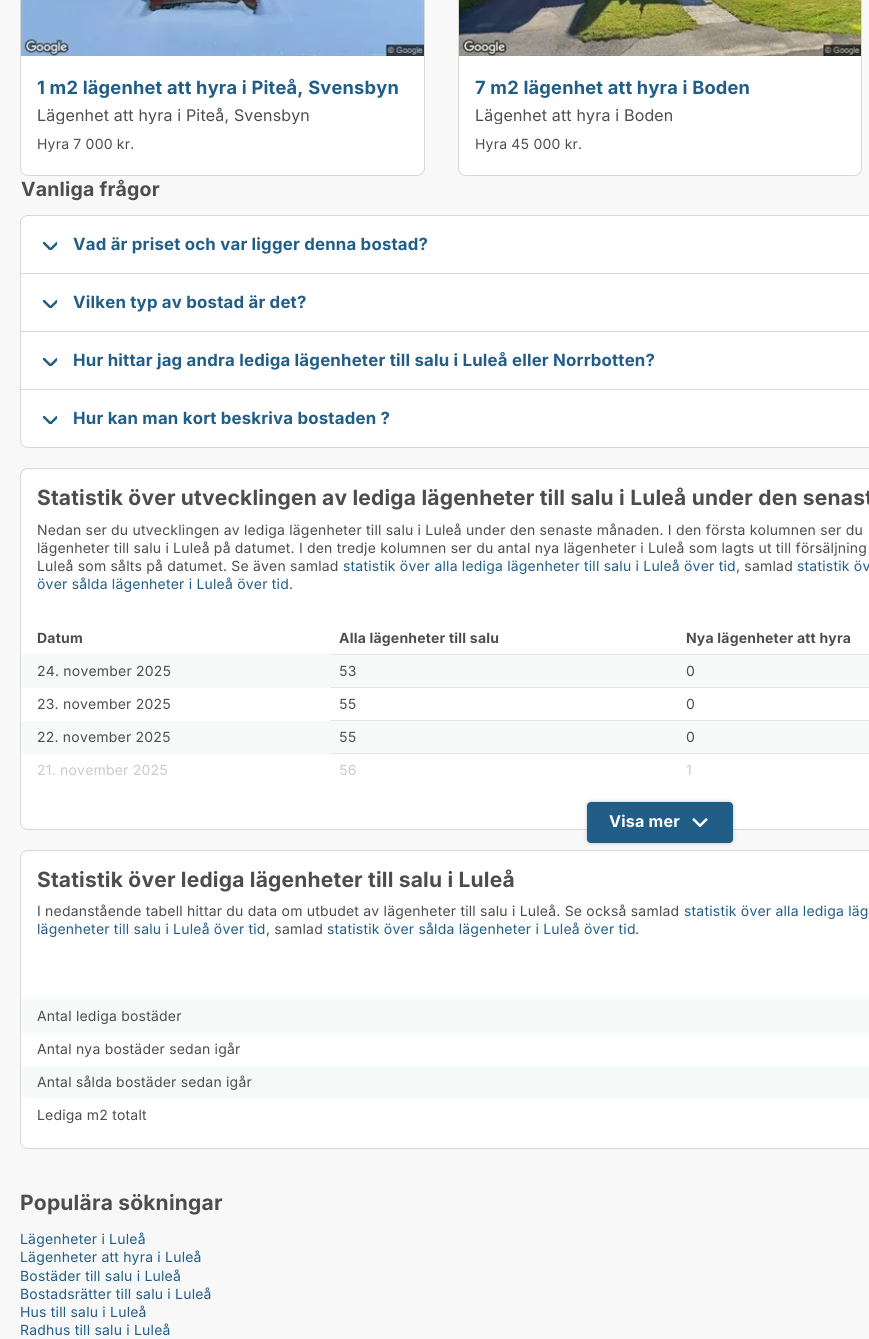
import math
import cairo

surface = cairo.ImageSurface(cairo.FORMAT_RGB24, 869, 1339)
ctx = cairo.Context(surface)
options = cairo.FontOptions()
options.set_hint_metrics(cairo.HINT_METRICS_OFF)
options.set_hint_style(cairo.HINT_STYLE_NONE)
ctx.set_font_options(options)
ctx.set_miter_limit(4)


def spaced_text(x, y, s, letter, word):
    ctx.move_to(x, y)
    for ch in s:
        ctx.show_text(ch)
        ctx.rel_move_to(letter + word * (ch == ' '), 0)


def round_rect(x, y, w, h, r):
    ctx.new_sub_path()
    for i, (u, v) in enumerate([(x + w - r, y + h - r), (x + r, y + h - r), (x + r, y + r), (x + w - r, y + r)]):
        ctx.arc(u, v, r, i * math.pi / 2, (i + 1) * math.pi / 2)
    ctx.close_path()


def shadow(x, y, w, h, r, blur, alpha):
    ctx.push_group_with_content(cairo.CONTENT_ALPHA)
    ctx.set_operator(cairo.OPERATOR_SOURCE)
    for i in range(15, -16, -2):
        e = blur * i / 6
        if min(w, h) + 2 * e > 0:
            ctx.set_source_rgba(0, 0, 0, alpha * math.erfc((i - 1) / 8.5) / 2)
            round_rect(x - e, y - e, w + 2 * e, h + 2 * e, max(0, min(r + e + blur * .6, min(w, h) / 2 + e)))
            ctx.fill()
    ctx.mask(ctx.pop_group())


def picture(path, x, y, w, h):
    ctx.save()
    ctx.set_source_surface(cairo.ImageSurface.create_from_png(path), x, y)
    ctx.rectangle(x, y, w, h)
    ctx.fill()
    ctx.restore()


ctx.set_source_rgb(0.969, 0.969, 0.969)
ctx.paint()
ctx.set_source_rgb(1, 1, 1)
round_rect(20.5, -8.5, 404, 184, 7.5)
ctx.fill_preserve()
ctx.set_source_rgb(0.847, 0.847, 0.847)
ctx.set_line_width(1)
ctx.stroke()
picture("img1.png", 21, 0, 403, 56)
ctx.select_font_face("Inter", cairo.FONT_SLANT_NORMAL, cairo.FONT_WEIGHT_BOLD)
ctx.set_font_size(18.25)
ctx.set_source_rgb(0.129, 0.369, 0.529)
spaced_text(37, 94, "1 m2 lägenhet att hyra i Piteå, Svensbyn", 0.2, 0)
ctx.save()
ctx.rectangle(37, 106, 371, 18)
ctx.clip()
ctx.select_font_face("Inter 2")
ctx.set_font_size(16.1)
ctx.set_source_rgb(0.302, 0.302, 0.302)
spaced_text(37, 121, "Lägenhet att hyra i Piteå, Svensbyn", 0.2, 0)
ctx.restore()
ctx.select_font_face("Inter")
ctx.set_font_size(14)
ctx.set_source_rgb(0.302, 0.302, 0.302)
spaced_text(37, 149, "Hyra 7 000 kr.", 0.2, 0)
ctx.set_source_rgb(1, 1, 1)
round_rect(458.5, -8.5, 403, 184, 7.5)
ctx.fill_preserve()
ctx.set_source_rgb(0.847, 0.847, 0.847)
ctx.stroke()
picture("img2.png", 459, 0, 402, 56)
ctx.select_font_face("Inter", cairo.FONT_SLANT_NORMAL, cairo.FONT_WEIGHT_BOLD)
ctx.set_font_size(18.25)
ctx.set_source_rgb(0.129, 0.369, 0.529)
spaced_text(475, 94, "7 m2 lägenhet att hyra i Boden", 0.2, 0)
ctx.save()
ctx.rectangle(475, 106, 370, 18)
ctx.clip()
ctx.select_font_face("Inter 2")
ctx.set_font_size(16.1)
ctx.set_source_rgb(0.302, 0.302, 0.302)
spaced_text(475, 121, "Lägenhet att hyra i Boden", 0.2, 0)
ctx.restore()
ctx.select_font_face("Inter")
ctx.set_font_size(14)
ctx.set_source_rgb(0.302, 0.302, 0.302)
spaced_text(475, 149, "Hyra 45 000 kr.", 0.2, 0)
ctx.set_source_rgb(1, 1, 1)
round_rect(20.5, 215.5, 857, 232, 7.5)
ctx.fill_preserve()
ctx.set_source_rgb(0.847, 0.847, 0.847)
ctx.stroke()
ctx.select_font_face("Inter", cairo.FONT_SLANT_NORMAL, cairo.FONT_WEIGHT_BOLD)
ctx.set_font_size(19.5)
ctx.set_source_rgb(0.302, 0.302, 0.302)
spaced_text(21, 196, "Vanliga frågor", 0.2, 0)
ctx.set_source_rgb(0.847, 0.847, 0.847)
ctx.rectangle(21, 273, 848, 1)
ctx.fill()
ctx.save()
ctx.rectangle(43, 242, 14, 8)
ctx.clip()
ctx.new_path()
ctx.move_to(44, 243)
ctx.line_to(50.5, 249.5)
ctx.line_to(57, 243)
ctx.set_source_rgb(0.129, 0.369, 0.529)
ctx.set_line_width(2.5)
ctx.set_line_cap(cairo.LINE_CAP_ROUND)
ctx.set_line_join(cairo.LINE_JOIN_ROUND)
ctx.stroke()
ctx.restore()
ctx.set_font_size(16.8)
ctx.set_source_rgb(0.129, 0.369, 0.529)
spaced_text(73, 250, "Vad är priset och var ligger denna bostad?", 0.2, 0)
ctx.set_source_rgb(0.847, 0.847, 0.847)
ctx.rectangle(21, 331, 848, 1)
ctx.fill()
ctx.save()
ctx.rectangle(43, 300, 14, 8)
ctx.clip()
ctx.new_path()
ctx.move_to(44, 301)
ctx.line_to(50.5, 307.5)
ctx.line_to(57, 301)
ctx.set_source_rgb(0.129, 0.369, 0.529)
ctx.set_line_width(2.5)
ctx.set_line_cap(cairo.LINE_CAP_ROUND)
ctx.set_line_join(cairo.LINE_JOIN_ROUND)
ctx.stroke()
ctx.restore()
ctx.set_source_rgb(0.129, 0.369, 0.529)
spaced_text(73, 308, "Vilken typ av bostad är det?", 0.2, 0)
ctx.set_source_rgb(0.847, 0.847, 0.847)
ctx.rectangle(21, 389, 848, 1)
ctx.fill()
ctx.save()
ctx.rectangle(43, 358, 14, 8)
ctx.clip()
ctx.new_path()
ctx.move_to(44, 359)
ctx.line_to(50.5, 365.5)
ctx.line_to(57, 359)
ctx.set_source_rgb(0.129, 0.369, 0.529)
ctx.set_line_width(2.5)
ctx.set_line_cap(cairo.LINE_CAP_ROUND)
ctx.set_line_join(cairo.LINE_JOIN_ROUND)
ctx.stroke()
ctx.restore()
ctx.set_source_rgb(0.129, 0.369, 0.529)
spaced_text(73, 366, "Hur hittar jag andra lediga lägenheter till salu i Luleå eller Norrbotten?", 0.2, 0)
ctx.save()
ctx.rectangle(43, 416, 14, 8)
ctx.clip()
ctx.new_path()
ctx.move_to(44, 417)
ctx.line_to(50.5, 423.5)
ctx.line_to(57, 417)
ctx.set_line_width(2.5)
ctx.set_line_cap(cairo.LINE_CAP_ROUND)
ctx.set_line_join(cairo.LINE_JOIN_ROUND)
ctx.stroke()
ctx.restore()
spaced_text(73, 424, "Hur kan man kort beskriva bostaden ?", 0.2, 0)
ctx.set_source_rgb(1, 1, 1)
round_rect(20.5, 468.5, 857, 361, 7.5)
ctx.fill_preserve()
ctx.set_source_rgb(0.847, 0.847, 0.847)
ctx.stroke()
ctx.set_font_size(21)
ctx.set_source_rgb(0.302, 0.302, 0.302)
spaced_text(37, 505, "Statistik över utvecklingen av lediga lägenheter till salu i Luleå under den senast", 0.2, 0)
ctx.select_font_face("Inter")
ctx.set_font_size(14)
spaced_text(37, 535, "Nedan ser du utvecklingen av lediga lägenheter till salu i Luleå under den senaste månaden. I den första kolumnen ser du", 0.2, 0)
spaced_text(37, 553, "lägenheter till salu i Luleå på datumet. I den tredje kolumnen ser du antal nya lägenheter i Luleå som lagts ut till försäljning", 0.2, 0)
spaced_text(37, 571, "Luleå som sålts på datumet. Se även samlad", 0.2, 0)
ctx.set_source_rgb(0.129, 0.369, 0.529)
spaced_text(343, 571, "statistik över alla lediga lägenheter till salu i Luleå över tid", 0.2, 0)
ctx.set_source_rgb(0.302, 0.302, 0.302)
spaced_text(736, 571, ", samlad", 0.2, 0)
ctx.set_source_rgb(0.129, 0.369, 0.529)
spaced_text(797, 571, "statistik öv", 0.2, 0)
spaced_text(37, 589, "över sålda lägenheter i Luleå över tid", 0.2, 0)
ctx.set_source_rgb(0.302, 0.302, 0.302)
spaced_text(289, 589, ".", 0.2, 0)
ctx.set_source_rgb(0.898, 0.898, 0.898)
ctx.rectangle(330, 654, 539, 1)
ctx.fill()
ctx.select_font_face("Inter", cairo.FONT_SLANT_NORMAL, cairo.FONT_WEIGHT_BOLD)
ctx.set_source_rgb(0.302, 0.302, 0.302)
spaced_text(37, 643, "Datum", 0.2, 0)
spaced_text(339, 643, "Alla lägenheter till salu", 0.2, 0)
spaced_text(686, 643, "Nya lägenheter att hyra", 0.2, 0)
ctx.set_source_rgb(0.898, 0.898, 0.898)
ctx.rectangle(330, 687, 539, 1)
ctx.fill()
ctx.set_source_rgb(0.961, 0.98, 0.973)
ctx.rectangle(21, 654, 309, 34)
ctx.fill()
ctx.select_font_face("Inter")
ctx.set_source_rgb(0.302, 0.302, 0.302)
spaced_text(37, 676, "24. november 2025", 0.2, 0)
ctx.set_source_rgb(0.961, 0.98, 0.973)
ctx.rectangle(330, 655, 539, 32)
ctx.fill()
ctx.set_source_rgb(0.302, 0.302, 0.302)
spaced_text(339, 676, "53", 0.2, 0)
spaced_text(686, 676, "0", 0.2, 0)
ctx.set_source_rgb(0.898, 0.898, 0.898)
ctx.rectangle(330, 720, 539, 1)
ctx.fill()
ctx.set_source_rgb(0.302, 0.302, 0.302)
spaced_text(37, 709, "23. november 2025", 0.2, 0)
spaced_text(339, 709, "55", 0.2, 0)
spaced_text(686, 709, "0", 0.2, 0)
ctx.set_source_rgb(0.898, 0.898, 0.898)
ctx.rectangle(330, 753, 539, 1)
ctx.fill()
ctx.set_source_rgb(0.961, 0.98, 0.973)
ctx.rectangle(21, 721, 309, 33)
ctx.fill()
ctx.set_source_rgb(0.302, 0.302, 0.302)
spaced_text(37, 742, "22. november 2025", 0.2, 0)
ctx.set_source_rgb(0.961, 0.98, 0.973)
ctx.rectangle(330, 721, 539, 32)
ctx.fill()
ctx.set_source_rgb(0.302, 0.302, 0.302)
spaced_text(339, 742, "55", 0.2, 0)
spaced_text(686, 742, "0", 0.2, 0)
ctx.set_source_rgb(0.792, 0.792, 0.792)
spaced_text(37, 775, "21. november 2025", 0.2, 0)
spaced_text(339, 775, "56", 0.2, 0)
spaced_text(686, 775, "1", 0.2, 0)
ctx.set_source_rgb(0, 0, 0)
shadow(587, 802, 146, 41, 4, 2, 0.25)
ctx.set_source_rgb(0.129, 0.369, 0.529)
round_rect(587, 802, 146, 41, 4)
ctx.fill()
ctx.select_font_face("Inter", cairo.FONT_SLANT_NORMAL, cairo.FONT_WEIGHT_BOLD)
ctx.set_font_size(16.1)
ctx.set_source_rgb(1, 1, 1)
spaced_text(609, 827, "Visa mer", 0.2, 0)
picture("img3.png", 692, 818, 16, 9)
round_rect(20.5, 850.5, 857, 298, 7.5)
ctx.fill_preserve()
ctx.set_source_rgb(0.847, 0.847, 0.847)
ctx.stroke()
ctx.set_font_size(21)
ctx.set_source_rgb(0.302, 0.302, 0.302)
spaced_text(37, 887, "Statistik över lediga lägenheter till salu i Luleå", 0.2, 0)
ctx.select_font_face("Inter")
ctx.set_font_size(14)
spaced_text(37, 916, "I nedanstående tabell hittar du data om utbudet av lägenheter till salu i Luleå. Se också samlad", 0.2, 0)
ctx.set_source_rgb(0.129, 0.369, 0.529)
spaced_text(684, 916, "statistik över alla lediga läg", 0.2, 0)
spaced_text(37, 934, "lägenheter till salu i Luleå över tid", 0.2, 0)
ctx.set_source_rgb(0.302, 0.302, 0.302)
spaced_text(266, 934, ", samlad", 0.2, 0)
ctx.set_source_rgb(0.129, 0.369, 0.529)
spaced_text(327, 934, "statistik över sålda lägenheter i Luleå över tid", 0.2, 0)
ctx.set_source_rgb(0.302, 0.302, 0.302)
spaced_text(635, 934, ".", 0.2, 0)
ctx.set_source_rgb(0.961, 0.98, 0.973)
ctx.rectangle(21, 999, 848, 34)
ctx.fill()
ctx.set_source_rgb(0.302, 0.302, 0.302)
spaced_text(37, 1021, "Antal lediga bostäder", 0.2, 0)
spaced_text(37, 1054, "Antal nya bostäder sedan igår", 0.2, 0)
ctx.set_source_rgb(0.961, 0.98, 0.973)
ctx.rectangle(21, 1066, 848, 33)
ctx.fill()
ctx.set_source_rgb(0.302, 0.302, 0.302)
spaced_text(37, 1087, "Antal sålda bostäder sedan igår", 0.2, 0)
spaced_text(37, 1120, "Lediga m2 totalt", 0.2, 0)
ctx.select_font_face("Inter", cairo.FONT_SLANT_NORMAL, cairo.FONT_WEIGHT_BOLD)
ctx.set_font_size(21)
spaced_text(20, 1210, "Populära sökningar", 0.2, 0)
ctx.select_font_face("Inter")
ctx.set_font_size(14)
ctx.set_source_rgb(0.129, 0.369, 0.529)
spaced_text(20, 1244, "Lägenheter i Luleå", 0.2, 0)
spaced_text(20, 1262, "Lägenheter att hyra i Luleå", 0.2, 0)
spaced_text(20, 1281, "Bostäder till salu i Luleå", 0.2, 0)
spaced_text(20, 1299, "Bostadsrätter till salu i Luleå", 0.2, 0)
spaced_text(20, 1317, "Hus till salu i Luleå", 0.2, 0)
spaced_text(20, 1335, "Radhus till salu i Luleå", 0.2, 0)
surface.write_to_png("page.png")
